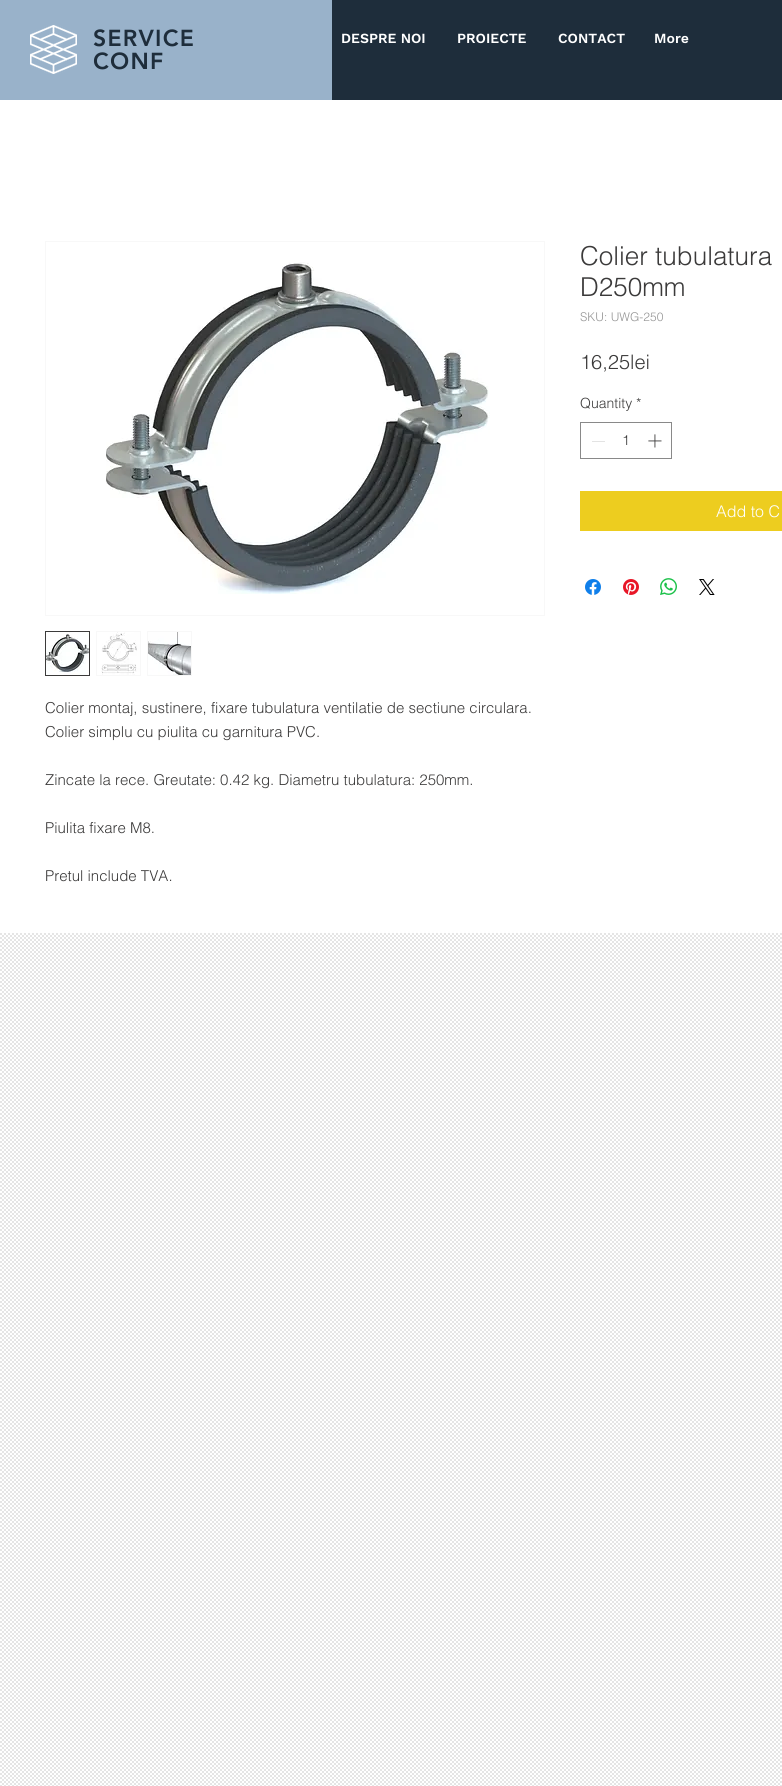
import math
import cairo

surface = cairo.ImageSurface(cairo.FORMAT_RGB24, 782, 1786)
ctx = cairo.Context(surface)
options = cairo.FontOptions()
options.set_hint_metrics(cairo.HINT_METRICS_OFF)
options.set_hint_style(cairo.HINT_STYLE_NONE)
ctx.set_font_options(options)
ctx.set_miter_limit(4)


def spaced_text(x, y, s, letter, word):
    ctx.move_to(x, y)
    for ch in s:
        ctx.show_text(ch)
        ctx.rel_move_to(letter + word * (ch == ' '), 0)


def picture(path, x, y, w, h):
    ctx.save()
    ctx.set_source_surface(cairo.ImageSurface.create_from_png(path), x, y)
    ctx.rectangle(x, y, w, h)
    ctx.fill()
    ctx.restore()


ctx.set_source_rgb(1, 1, 1)
ctx.paint()
ctx.set_source_rgb(0.6, 0.698, 0.792)
ctx.rectangle(0, 0, 332, 100)
ctx.fill()
picture("img1.png", 30, 25, 47, 49)
ctx.select_font_face("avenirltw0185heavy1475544 Black")
ctx.set_font_size(23)
ctx.set_source_rgb(0.118, 0.176, 0.231)
spaced_text(93, 46, "SERVICE", 1.25, 0)
spaced_text(93, 69, "CONF", 1.25, 0)
ctx.rectangle(332, 0, 450, 100)
ctx.fill()
ctx.select_font_face("Work Sans SemiBold")
ctx.set_font_size(14)
ctx.set_source_rgb(1, 1, 1)
ctx.move_to(341, 43)
ctx.show_text("DESPRE NOI")
ctx.move_to(457, 43)
ctx.show_text("PROIECTE")
ctx.move_to(558, 43)
ctx.show_text("CONTACT")
ctx.move_to(654, 43)
ctx.show_text("More")
ctx.select_font_face("helvetica Light")
ctx.set_font_size(26)
ctx.set_source_rgb(0.231, 0.227, 0.227)
ctx.move_to(580, 265)
ctx.show_text("Colier tubulatura")
ctx.move_to(580, 296)
ctx.show_text("D250mm")
ctx.set_font_size(12)
ctx.set_source_rgb(0.58, 0.58, 0.58)
ctx.move_to(580, 321)
ctx.show_text("SKU: UWG-250")
ctx.set_font_size(20)
ctx.set_source_rgb(0.231, 0.227, 0.227)
ctx.move_to(580, 369)
ctx.show_text("16,25lei")
ctx.set_font_size(14)
ctx.move_to(580, 408)
ctx.show_text("Quantity *")
ctx.rectangle(580.5, 422.5, 91, 36)
ctx.set_source_rgb(0.537, 0.537, 0.537)
ctx.set_line_width(1)
ctx.stroke()
ctx.set_source_rgb(0.89, 0.89, 0.89)
ctx.rectangle(592, 441, 13, 1)
ctx.fill()
ctx.set_source_rgb(0.231, 0.227, 0.227)
ctx.move_to(622, 445)
ctx.show_text("1")
picture("img2.png", 648, 434, 14, 14)
ctx.set_source_rgb(0.929, 0.804, 0.122)
ctx.rectangle(580, 491, 202, 40)
ctx.fill()
ctx.set_font_size(16)
ctx.set_source_rgb(1, 1, 1)
ctx.move_to(716, 517)
ctx.show_text("Add to C")
picture("img3.png", 585, 579, 16, 16)
picture("img4.png", 623, 579, 16, 16)
picture("img5.png", 660, 578, 17, 17)
picture("img6.png", 699, 579, 16, 16)
ctx.rectangle(45.5, 241.5, 499, 374)
ctx.set_source_rgb(0.969, 0.969, 0.969)
ctx.stroke()
picture("img7.png", 106, 262, 384, 332)
ctx.rectangle(45.5, 631.5, 44, 44)
ctx.set_source_rgb(0.231, 0.227, 0.227)
ctx.stroke()
picture("img8.png", 46, 632, 43, 43)
ctx.set_source_rgb(0.969, 0.969, 0.969)
ctx.rectangle(96, 631, 45, 45)
ctx.fill()
picture("img9.png", 97, 632, 43, 43)
ctx.rectangle(147, 631, 45, 45)
ctx.fill()
picture("img10.png", 148, 632, 43, 43)
ctx.set_font_size(15)
ctx.set_source_rgb(0.231, 0.227, 0.227)
ctx.move_to(45, 713)
ctx.show_text("Colier montaj, sustinere, fixare tubulatura ventilatie de sectiune circulara.")
ctx.move_to(45, 737)
ctx.show_text("Colier simplu cu piulita cu garnitura PVC.")
ctx.move_to(45, 785)
ctx.show_text("Zincate la rece. Greutate: 0.42 kg. Diametru tubulatura: 250mm.")
ctx.move_to(45, 833)
ctx.show_text("Piulita fixare M8.")
ctx.move_to(45, 881)
ctx.show_text("Pretul include TVA.")
picture("img11.png", 0, 933, 782, 853)
surface.write_to_png("page.png")
